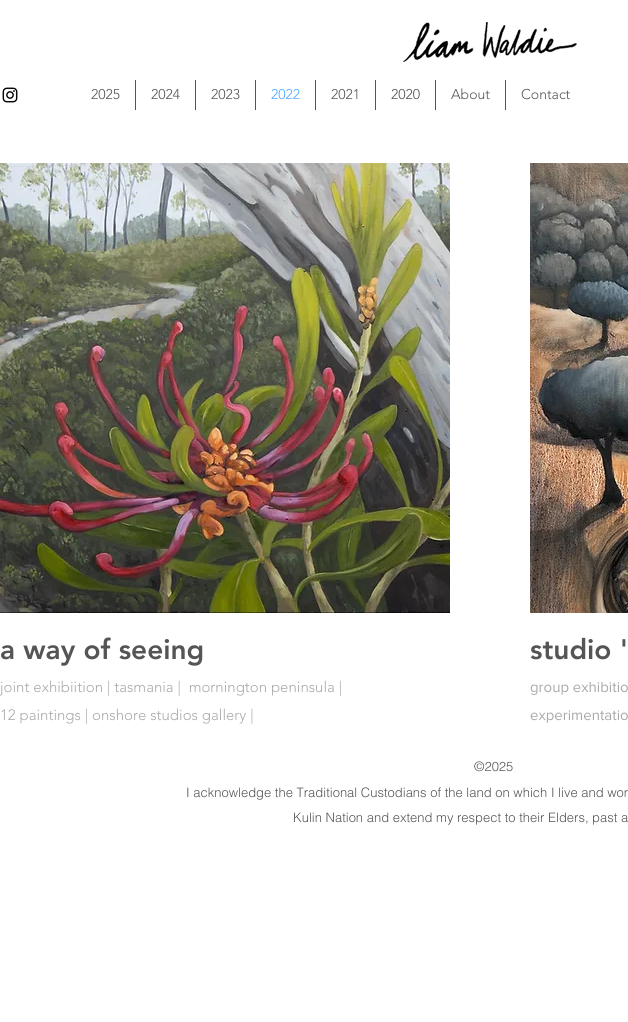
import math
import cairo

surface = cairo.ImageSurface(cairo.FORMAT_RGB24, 628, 1022)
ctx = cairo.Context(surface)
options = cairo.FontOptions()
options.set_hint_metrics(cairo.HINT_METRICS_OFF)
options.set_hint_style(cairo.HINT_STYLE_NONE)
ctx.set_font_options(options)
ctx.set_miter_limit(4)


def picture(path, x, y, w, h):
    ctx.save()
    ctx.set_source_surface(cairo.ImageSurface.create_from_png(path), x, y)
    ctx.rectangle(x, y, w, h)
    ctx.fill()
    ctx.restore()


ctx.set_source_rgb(1, 1, 1)
ctx.paint()
picture("img1.png", 403, 22, 174, 40)
picture("img2.png", 2, 87, 16, 16)
ctx.select_font_face("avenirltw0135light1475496 Light")
ctx.set_font_size(14)
ctx.set_source_rgb(0.333, 0.333, 0.333)
ctx.move_to(91, 99)
ctx.show_text("2025")
ctx.rectangle(135, 80, 1, 30)
ctx.fill()
ctx.move_to(151, 99)
ctx.show_text("2024")
ctx.rectangle(195, 80, 1, 30)
ctx.fill()
ctx.move_to(211, 99)
ctx.show_text("2023")
ctx.rectangle(255, 80, 1, 30)
ctx.fill()
ctx.set_source_rgb(0.314, 0.663, 1)
ctx.move_to(271, 99)
ctx.show_text("2022")
ctx.set_source_rgb(0.333, 0.333, 0.333)
ctx.rectangle(315, 80, 1, 30)
ctx.fill()
ctx.move_to(331, 99)
ctx.show_text("2021")
ctx.rectangle(375, 80, 1, 30)
ctx.fill()
ctx.move_to(391, 99)
ctx.show_text("2020")
ctx.rectangle(435, 80, 1, 30)
ctx.fill()
ctx.move_to(451, 99)
ctx.show_text("About")
ctx.rectangle(505, 80, 1, 30)
ctx.fill()
ctx.move_to(521, 99)
ctx.show_text("Contact")
picture("img3.png", 0, 163, 450, 450)
picture("img4.png", 530, 163, 98, 450)
ctx.select_font_face("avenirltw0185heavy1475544 Black")
ctx.set_font_size(28)
ctx.move_to(0, 659)
ctx.show_text("a way of seeing")
ctx.move_to(530, 659)
ctx.show_text("studio '")
ctx.select_font_face("avenirltw0135light1475496 Light")
ctx.set_font_size(15)
ctx.set_source_rgb(0.667, 0.667, 0.667)
ctx.move_to(0, 692)
ctx.show_text("joint exhibiition | tasmania |  mornington peninsula |")
ctx.move_to(0, 720)
ctx.show_text("12 paintings | onshore studios gallery |")
ctx.select_font_face("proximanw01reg")
ctx.move_to(530, 692)
ctx.show_text("group exhibitio")
ctx.move_to(530, 720)
ctx.show_text("experimentatio")
ctx.select_font_face("helvetica Light")
ctx.set_font_size(13)
ctx.set_source_rgb(0.333, 0.333, 0.333)
ctx.move_to(474, 771)
ctx.show_text("©2025")
ctx.move_to(186, 797)
ctx.show_text("I acknowledge the Traditional Custodians of the land on which I live and wor")
ctx.move_to(293, 822)
ctx.show_text("Kulin Nation and extend my respect to their Elders, past a")
surface.write_to_png("page.png")
